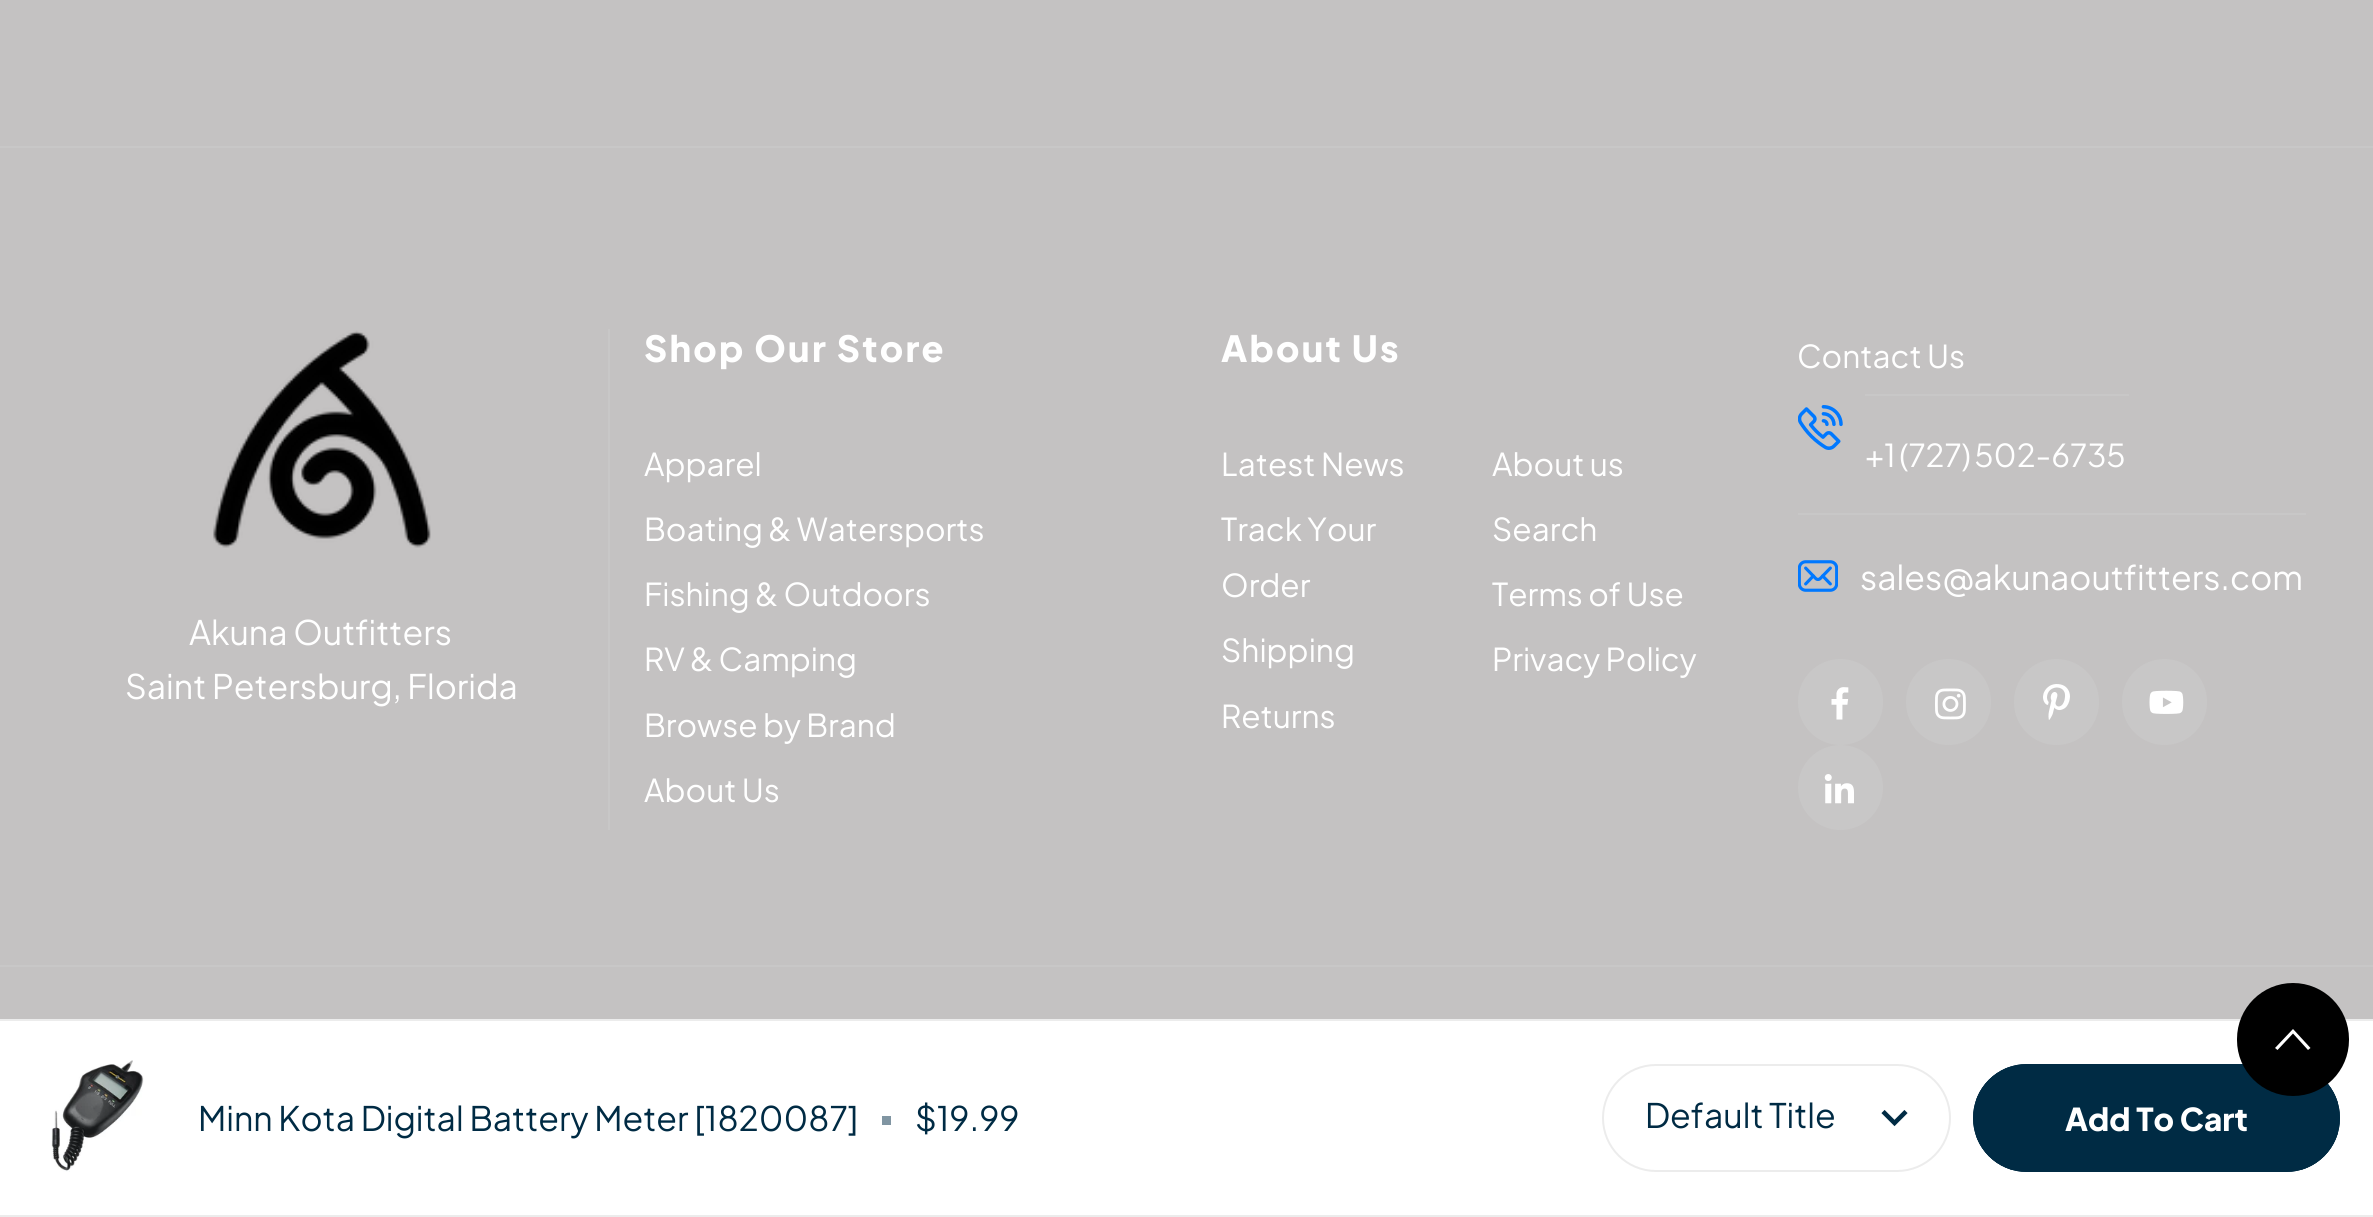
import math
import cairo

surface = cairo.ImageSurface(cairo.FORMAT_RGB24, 2373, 1217)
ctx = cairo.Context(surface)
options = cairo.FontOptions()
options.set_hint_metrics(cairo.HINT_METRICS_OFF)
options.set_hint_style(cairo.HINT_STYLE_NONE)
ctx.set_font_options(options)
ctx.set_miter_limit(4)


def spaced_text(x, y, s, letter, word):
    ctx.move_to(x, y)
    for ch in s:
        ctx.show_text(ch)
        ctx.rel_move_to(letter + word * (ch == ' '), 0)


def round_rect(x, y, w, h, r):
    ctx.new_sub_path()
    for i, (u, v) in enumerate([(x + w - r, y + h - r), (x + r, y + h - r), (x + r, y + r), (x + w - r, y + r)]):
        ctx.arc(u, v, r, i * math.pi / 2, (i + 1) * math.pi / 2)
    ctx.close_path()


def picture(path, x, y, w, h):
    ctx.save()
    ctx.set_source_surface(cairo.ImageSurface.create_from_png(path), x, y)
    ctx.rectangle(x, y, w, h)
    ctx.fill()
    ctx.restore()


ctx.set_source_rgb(0.769, 0.761, 0.761)
ctx.paint()
ctx.set_source_rgb(0.784, 0.78, 0.78)
ctx.rectangle(0, 146, 2373, 2)
ctx.fill()
ctx.select_font_face("Plus Jakarta Sans ExtraBold")
ctx.set_font_size(36)
ctx.set_source_rgb(1, 1, 1)
spaced_text(644, 362, "Shop Our Store", 2.25, 0)
ctx.select_font_face("Plus Jakarta Sans")
ctx.set_font_size(31.5)
ctx.move_to(644, 476)
ctx.show_text("Apparel")
ctx.move_to(644, 541)
ctx.show_text("Boating & Watersports")
ctx.move_to(644, 606)
ctx.show_text("Fishing & Outdoors")
ctx.move_to(644, 671)
ctx.show_text("RV & Camping")
ctx.move_to(644, 737)
ctx.show_text("Browse by Brand")
ctx.move_to(644, 802)
ctx.show_text("About Us")
ctx.select_font_face("Plus Jakarta Sans ExtraBold")
ctx.set_font_size(36)
spaced_text(1221, 362, "About Us", 2.25, 0)
ctx.select_font_face("Plus Jakarta Sans")
ctx.set_font_size(31.5)
ctx.move_to(1221, 476)
ctx.show_text("Latest News")
ctx.move_to(1492, 476)
ctx.show_text("About us")
ctx.move_to(1221, 541)
ctx.show_text("Track Your")
ctx.move_to(1221, 597)
ctx.show_text("Order")
ctx.move_to(1492, 541)
ctx.show_text("Search")
ctx.move_to(1492, 606)
ctx.show_text("Terms of Use")
ctx.move_to(1221, 662)
ctx.show_text("Shipping")
ctx.move_to(1492, 671)
ctx.show_text("Privacy Policy")
ctx.move_to(1221, 728)
ctx.show_text("Returns")
ctx.move_to(1797, 368)
ctx.show_text("Contact Us")
picture("img1.png", 1798, 405, 45, 45)
ctx.set_source_rgb(0.784, 0.78, 0.78)
ctx.rectangle(1865, 394, 264, 2)
ctx.fill()
ctx.set_source_rgb(1, 1, 1)
spaced_text(1865, 467, "+1 (727) 502-6735", 0, -2)
ctx.set_source_rgb(0.784, 0.78, 0.78)
ctx.rectangle(1798, 513, 508, 2)
ctx.fill()
picture("img2.png", 1798, 560, 40, 32)
ctx.set_font_size(33.75)
ctx.set_source_rgb(1, 1, 1)
ctx.move_to(1860, 590)
ctx.show_text("sales@akunaoutfitters.com")
ctx.set_source_rgb(0.784, 0.78, 0.78)
round_rect(1798, 659, 85, 86, 42.5)
ctx.fill()
picture("img3.png", 1831, 687, 18, 33)
round_rect(1906, 659, 85, 86, 42.5)
ctx.fill()
picture("img4.png", 1935, 688, 31, 32)
round_rect(2014, 659, 85, 86, 42.5)
ctx.fill()
picture("img5.png", 2043, 684, 27, 36)
round_rect(2122, 659, 85, 86, 42.5)
ctx.fill()
picture("img6.png", 2149, 690, 35, 24)
ctx.arc(1840.5, 787.5, 42.5, 0, 2 * math.pi)
ctx.fill()
picture("img7.png", 1824, 774, 30, 30)
ctx.rectangle(608, 329, 2, 501)
ctx.fill()
picture("img8.png", 213, 330, 218, 218)
ctx.set_source_rgb(1, 1, 1)
ctx.move_to(189, 645)
ctx.show_text("Akuna Outfitters")
ctx.move_to(125, 699)
ctx.show_text("Saint Petersburg, Florida")
ctx.set_source_rgb(0.784, 0.78, 0.78)
ctx.rectangle(0, 965, 2373, 2)
ctx.fill()
ctx.set_source_rgb(1, 1, 1)
ctx.rectangle(0, 1021, 2373, 194)
ctx.fill()
ctx.set_source_rgb(0.922, 0.922, 0.922)
ctx.rectangle(0, 1019, 2373, 2)
ctx.fill()
ctx.set_source_rgb(0, 0.169, 0.267)
round_rect(1973, 1064, 367, 108, 54)
ctx.fill()
ctx.save()
round_rect(1973, 1064, 367, 108, 54)
ctx.clip()
ctx.rectangle(1976, 1067, 362, 103)
ctx.fill()
ctx.restore()
round_rect(1974, 1065, 365, 106, 53)
ctx.stroke()
ctx.set_source_rgb(0, 0, 0)
round_rect(2237, 983, 112, 113, 56)
ctx.fill()
ctx.set_source_rgb(1, 1, 1)
ctx.new_path()
ctx.move_to(2308, 1050)
ctx.line_to(2310.5, 1048)
ctx.line_to(2293, 1029)
ctx.line_to(2275, 1048)
ctx.line_to(2277.5, 1050)
ctx.line_to(2293, 1033.5)
ctx.close_path()
ctx.fill()
ctx.set_source_rgb(0.922, 0.922, 0.922)
ctx.rectangle(0, 1215, 2373, 2)
ctx.fill()
picture("img9.png", 51, 1060, 93, 112)
ctx.set_source_rgb(0, 0.169, 0.267)
ctx.move_to(198, 1131)
ctx.show_text("Minn Kota Digital Battery Meter [1820087]")
ctx.set_source_rgb(0.502, 0.584, 0.635)
ctx.rectangle(882, 1116, 9, 9)
ctx.fill()
ctx.set_source_rgb(0, 0.169, 0.267)
ctx.move_to(915, 1131)
ctx.show_text("$19.99")
round_rect(1603, 1065, 347, 106, 53)
ctx.set_source_rgb(0.922, 0.922, 0.922)
ctx.stroke()
ctx.set_source_rgb(0, 0.169, 0.267)
ctx.move_to(1645, 1128)
ctx.show_text("Default Title")
ctx.new_path()
ctx.move_to(1883, 1111.5)
ctx.line_to(1894.5, 1123)
ctx.line_to(1906, 1111.5)
ctx.set_line_width(4.5)
ctx.stroke()
ctx.select_font_face("Plus Jakarta Sans ExtraBold")
ctx.set_font_size(31.5)
ctx.set_source_rgb(1, 1, 1)
ctx.move_to(2065, 1131)
ctx.show_text("Add To Cart")
surface.write_to_png("page.png")
